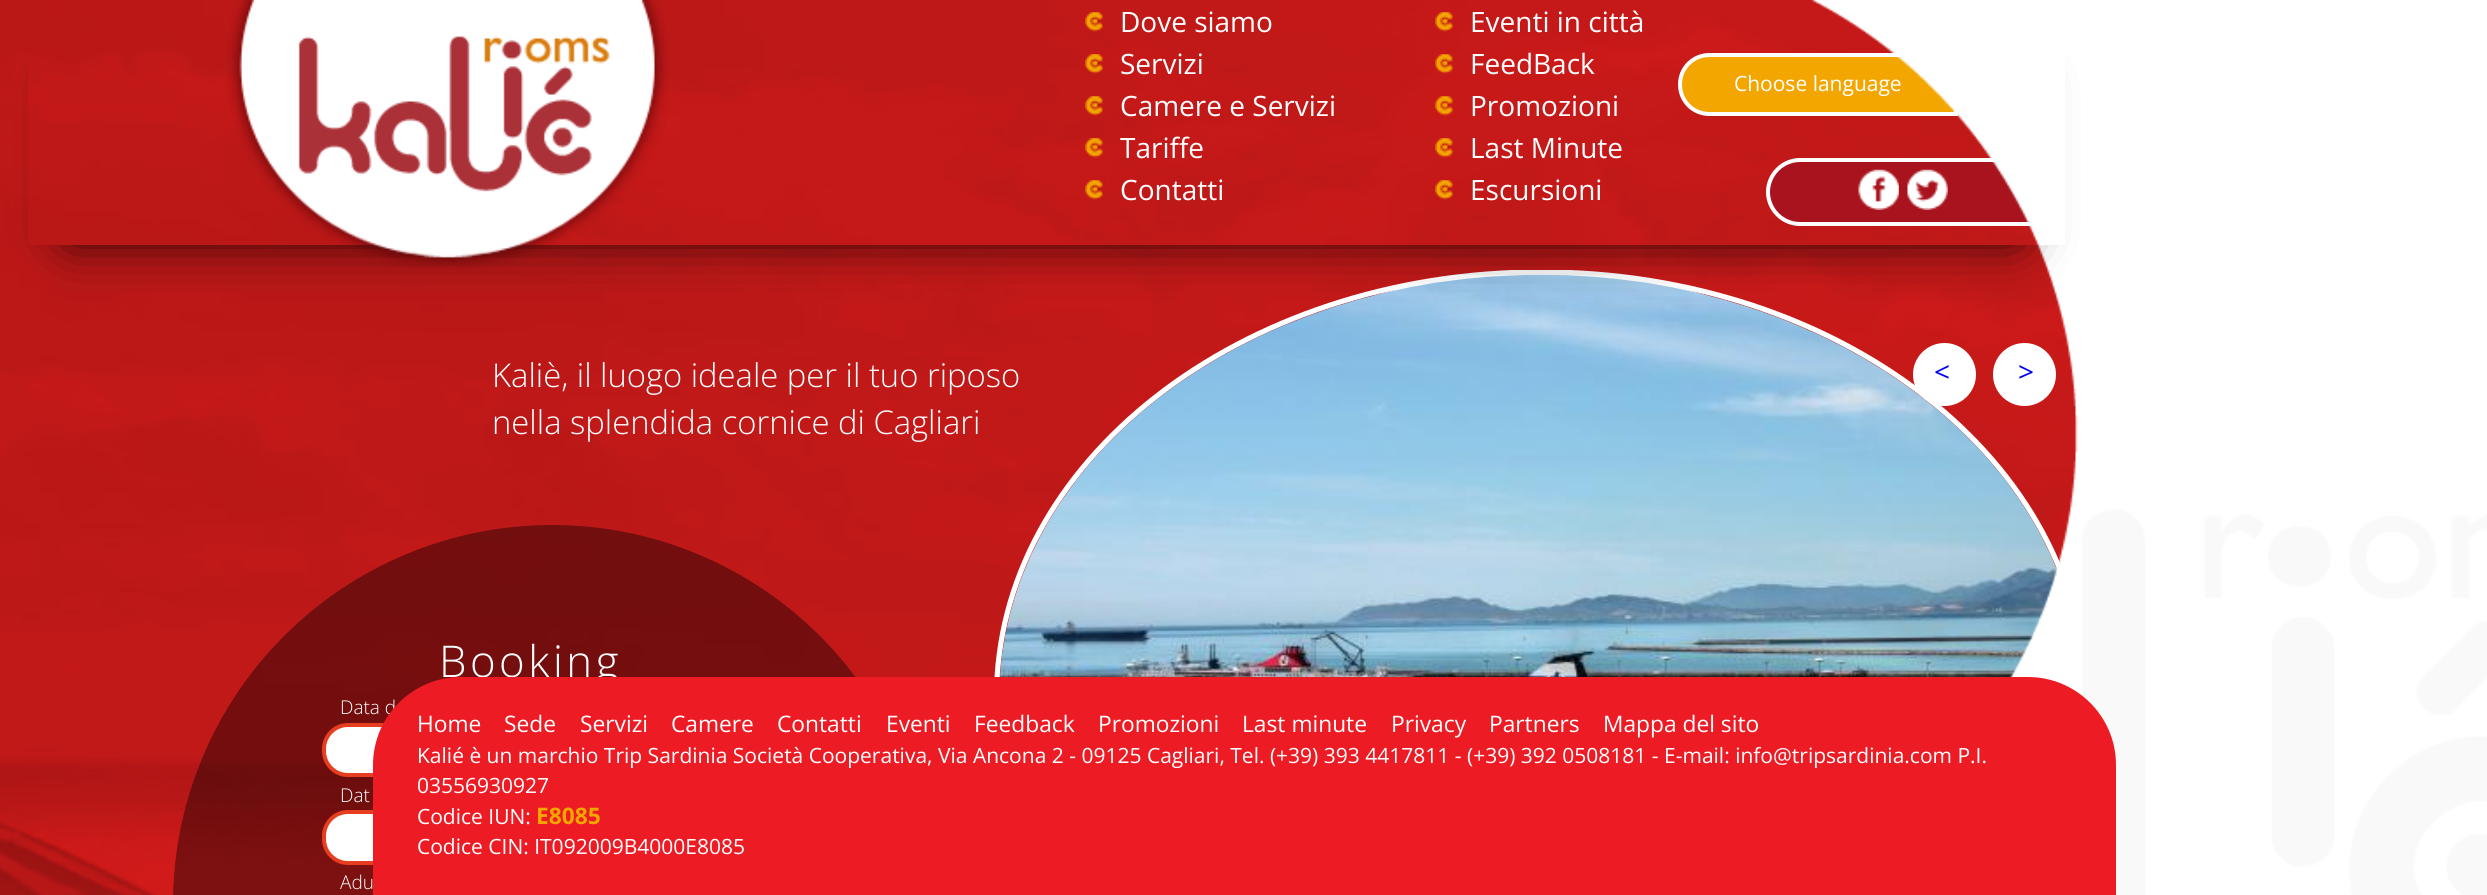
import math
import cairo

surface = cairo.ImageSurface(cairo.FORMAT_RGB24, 2487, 895)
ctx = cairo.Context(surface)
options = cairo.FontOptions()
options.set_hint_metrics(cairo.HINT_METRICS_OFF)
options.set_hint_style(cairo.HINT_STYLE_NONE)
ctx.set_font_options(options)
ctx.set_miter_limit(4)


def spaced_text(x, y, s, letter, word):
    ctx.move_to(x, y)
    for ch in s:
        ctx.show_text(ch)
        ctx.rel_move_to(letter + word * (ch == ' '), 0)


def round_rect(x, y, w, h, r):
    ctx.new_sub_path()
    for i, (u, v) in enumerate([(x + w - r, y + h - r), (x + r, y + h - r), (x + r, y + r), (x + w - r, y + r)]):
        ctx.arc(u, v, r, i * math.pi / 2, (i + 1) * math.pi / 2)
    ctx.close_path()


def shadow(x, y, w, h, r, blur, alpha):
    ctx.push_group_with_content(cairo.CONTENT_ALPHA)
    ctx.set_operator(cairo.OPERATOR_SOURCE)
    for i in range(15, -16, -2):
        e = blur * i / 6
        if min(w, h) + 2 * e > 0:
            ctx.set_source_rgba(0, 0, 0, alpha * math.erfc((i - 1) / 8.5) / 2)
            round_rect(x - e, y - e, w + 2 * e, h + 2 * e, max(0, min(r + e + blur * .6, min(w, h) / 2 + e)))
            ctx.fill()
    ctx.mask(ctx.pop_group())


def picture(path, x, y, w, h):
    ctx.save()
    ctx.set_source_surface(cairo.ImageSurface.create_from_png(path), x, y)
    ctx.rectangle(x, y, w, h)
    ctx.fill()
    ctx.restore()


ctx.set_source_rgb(1, 1, 1)
ctx.paint()
picture("img1.png", 0, 0, 2078, 895)
ctx.set_source_rgb(0.953, 0.651, 0)
ctx.new_path()
ctx.move_to(1709.5, 55)
ctx.line_to(1956, 55)
ctx.line_to(1956, 114)
ctx.line_to(1709.5, 114)
ctx.curve_to(1693, 114, 1680, 101, 1680, 84.5)
ctx.curve_to(1680, 68, 1693, 55, 1709.5, 55)
ctx.close_path()
ctx.fill_preserve()
ctx.set_source_rgb(1, 1, 1)
ctx.set_line_width(4)
ctx.stroke()
ctx.set_source_rgb(0.659, 0.075, 0.114)
ctx.new_path()
ctx.move_to(1800, 160)
ctx.line_to(2039, 160)
ctx.line_to(2039, 224)
ctx.line_to(1800, 224)
ctx.curve_to(1782.5, 224, 1768, 209.5, 1768, 192)
ctx.curve_to(1768, 174.5, 1782.5, 160, 1800, 160)
ctx.close_path()
ctx.fill_preserve()
ctx.set_source_rgb(1, 1, 1)
ctx.stroke()
round_rect(994, 270, 1094, 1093, 546.5)
ctx.fill()
ctx.save()
ctx.rectangle(994, 270, 1094, 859)
ctx.clip()
ctx.new_path()
ctx.move_to(1541, 272)
ctx.curve_to(1841.5, 272, 2085, 462.5, 2085, 697.5)
ctx.curve_to(2085, 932, 1841.5, 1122.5, 1541, 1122.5)
ctx.curve_to(1240.5, 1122.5, 996.5, 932, 996.5, 697.5)
ctx.curve_to(996.5, 462.5, 1240.5, 272, 1541, 272)
ctx.close_path()
ctx.set_line_width(5.2)
ctx.stroke()
ctx.restore()
ctx.select_font_face("Open Sans Light")
ctx.set_font_size(32.75)
ctx.move_to(492, 387)
ctx.show_text("Kaliè, il luogo ideale per il tuo riposo")
picture("img16.png", 999, 274, 1060, 403)
picture("img13.png", 1811, 0, 676, 895)
ctx.save()
ctx.set_fill_rule(cairo.FILL_RULE_EVEN_ODD)
ctx.new_path()
ctx.move_to(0, 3)
ctx.line_to(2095, 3)
ctx.line_to(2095, 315)
ctx.line_to(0, 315)
ctx.close_path()
ctx.move_to(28, 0)
ctx.line_to(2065, 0)
ctx.line_to(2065, 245)
ctx.line_to(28, 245)
ctx.close_path()
ctx.clip()
ctx.set_source_rgb(0, 0, 0)
shadow(70, 82, 1946, 154, 0, 26, 1)
ctx.restore()
picture("img2.png", 226, 0, 444, 270)
picture("img3.png", 1085, 12, 18, 20)
ctx.select_font_face("Open Sans")
ctx.set_font_size(28)
ctx.move_to(1120, 32)
ctx.show_text("Dove siamo")
picture("img4.png", 1085, 54, 18, 20)
ctx.move_to(1120, 74)
ctx.show_text("Servizi")
picture("img5.png", 1085, 96, 18, 20)
ctx.move_to(1120, 116)
ctx.show_text("Camere e Servizi")
picture("img6.png", 1085, 138, 18, 20)
ctx.move_to(1120, 158)
ctx.show_text("Tariffe")
picture("img7.png", 1085, 180, 18, 20)
ctx.move_to(1120, 200)
ctx.show_text("Contatti")
picture("img8.png", 1435, 12, 18, 20)
ctx.move_to(1470, 32)
ctx.show_text("Eventi in città")
picture("img9.png", 1435, 54, 18, 20)
ctx.move_to(1470, 74)
ctx.show_text("FeedBack")
picture("img10.png", 1435, 96, 18, 20)
ctx.move_to(1470, 116)
ctx.show_text("Promozioni")
picture("img11.png", 1435, 138, 18, 20)
ctx.move_to(1470, 158)
ctx.show_text("Last Minute")
picture("img12.png", 1435, 180, 18, 20)
ctx.move_to(1470, 200)
ctx.show_text("Escursioni")
ctx.set_font_size(21)
ctx.move_to(1734, 91)
ctx.show_text("Choose language")
picture("img14.png", 1858, 169, 41, 41)
picture("img15.png", 1907, 169, 41, 41)
ctx.select_font_face("Open Sans Light")
ctx.set_font_size(32.75)
ctx.move_to(492, 434)
ctx.show_text("nella splendida cornice di Cagliari")
ctx.new_path()
ctx.arc(1944.5, 374.5, 31.5, 0, 2 * math.pi)
ctx.fill()
ctx.select_font_face("Open Sans")
ctx.set_font_size(28)
ctx.set_source_rgb(0, 0, 0.933)
ctx.move_to(1934, 382)
ctx.show_text("<")
ctx.set_source_rgb(1, 1, 1)
ctx.new_path()
ctx.arc(2024.5, 374.5, 31.5, 0, 2 * math.pi)
ctx.fill()
ctx.set_source_rgb(0, 0, 0.933)
ctx.move_to(2018, 382)
ctx.show_text(">")
ctx.set_source_rgba(0, 0, 0, 0.4)
round_rect(173, 525, 758, 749, 379)
ctx.fill()
ctx.select_font_face("Open Sans Light")
ctx.set_font_size(43.75)
ctx.set_source_rgb(1, 1, 1)
spaced_text(439, 677, "Booking", 3.5, 0)
ctx.set_font_size(19)
ctx.move_to(340, 714)
ctx.show_text("Data d")
round_rect(324, 725, 355, 50, 24)
ctx.fill_preserve()
ctx.set_source_rgb(0.906, 0.239, 0.129)
ctx.stroke()
ctx.set_source_rgb(1, 1, 1)
ctx.move_to(340, 802)
ctx.show_text("Dat")
round_rect(324, 812, 355, 51, 24)
ctx.fill_preserve()
ctx.set_source_rgb(0.906, 0.239, 0.129)
ctx.stroke()
ctx.set_source_rgb(1, 1, 1)
ctx.move_to(340, 889)
ctx.show_text("Adu")
ctx.set_source_rgb(0.929, 0.106, 0.141)
ctx.new_path()
ctx.move_to(461, 677)
ctx.line_to(2028, 677)
ctx.curve_to(2076.5, 677, 2116, 716.5, 2116, 765)
ctx.line_to(2116, 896)
ctx.line_to(373, 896)
ctx.line_to(373, 765)
ctx.curve_to(373, 716.5, 412.5, 677, 461, 677)
ctx.close_path()
ctx.fill()
ctx.select_font_face("Open Sans")
ctx.set_font_size(22.75)
ctx.set_source_rgb(1, 1, 1)
ctx.move_to(417, 732)
ctx.show_text("Home")
ctx.move_to(504, 732)
ctx.show_text("Sede")
ctx.move_to(580, 732)
ctx.show_text("Servizi")
ctx.move_to(671, 732)
ctx.show_text("Camere")
ctx.move_to(777, 732)
ctx.show_text("Contatti")
ctx.move_to(886, 732)
ctx.show_text("Eventi")
ctx.move_to(974, 732)
ctx.show_text("Feedback")
ctx.move_to(1098, 732)
ctx.show_text("Promozioni")
ctx.move_to(1242, 732)
ctx.show_text("Last minute")
ctx.move_to(1391, 732)
ctx.show_text("Privacy")
ctx.move_to(1489, 732)
ctx.show_text("Partners")
ctx.move_to(1603, 732)
ctx.show_text("Mappa del sito")
ctx.set_font_size(21)
ctx.move_to(417, 763)
ctx.show_text("Kalié è un marchio Trip Sardinia Società Cooperativa, Via Ancona 2 - 09125 Cagliari, Tel. (+39) 393 4417811 - (+39) 392 0508181 - E-mail: info@tripsardinia.com P.I.")
ctx.move_to(417, 793)
ctx.show_text("03556930927")
ctx.move_to(417, 824)
ctx.show_text("Codice IUN:")
ctx.select_font_face("Open Sans", cairo.FONT_SLANT_NORMAL, cairo.FONT_WEIGHT_BOLD)
ctx.set_font_size(22.75)
ctx.set_source_rgb(0.953, 0.651, 0)
ctx.move_to(536, 824)
ctx.show_text("E8085")
ctx.select_font_face("Open Sans")
ctx.set_font_size(21)
ctx.set_source_rgb(1, 1, 1)
ctx.move_to(417, 854)
ctx.show_text("Codice CIN: IT092009B4000E8085")
surface.write_to_png("page.png")
